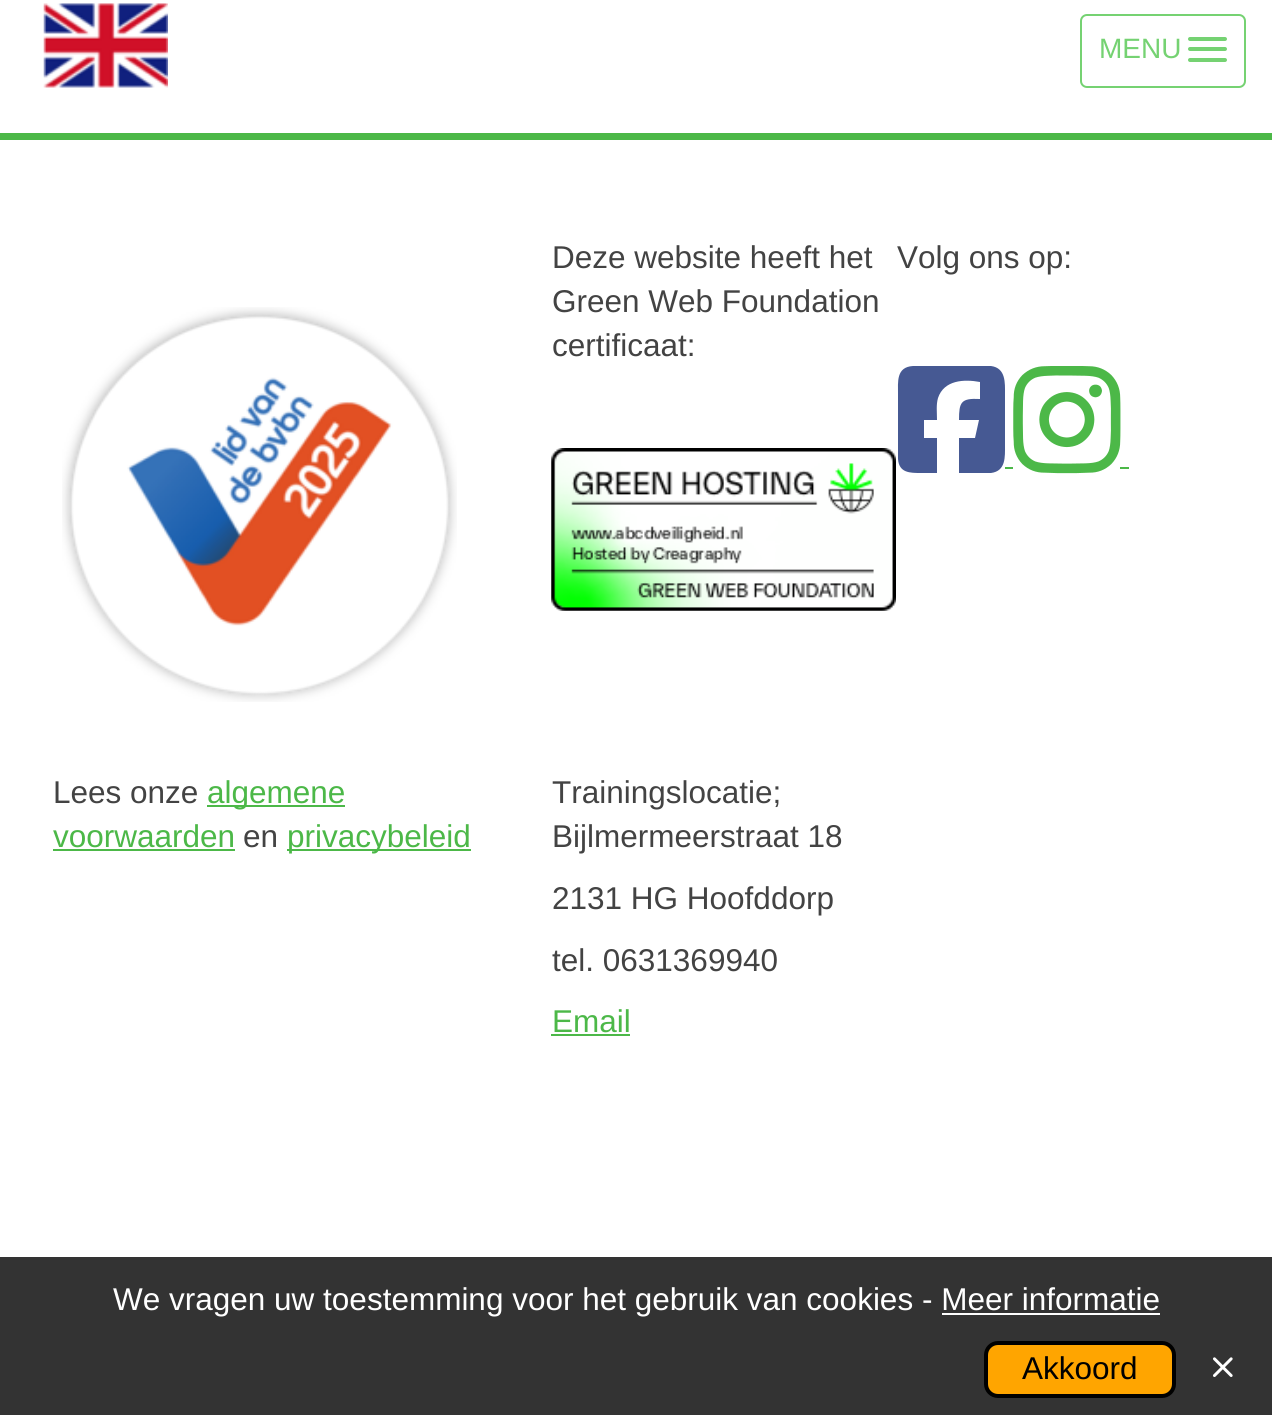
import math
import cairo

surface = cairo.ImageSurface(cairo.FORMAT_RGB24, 1272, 1415)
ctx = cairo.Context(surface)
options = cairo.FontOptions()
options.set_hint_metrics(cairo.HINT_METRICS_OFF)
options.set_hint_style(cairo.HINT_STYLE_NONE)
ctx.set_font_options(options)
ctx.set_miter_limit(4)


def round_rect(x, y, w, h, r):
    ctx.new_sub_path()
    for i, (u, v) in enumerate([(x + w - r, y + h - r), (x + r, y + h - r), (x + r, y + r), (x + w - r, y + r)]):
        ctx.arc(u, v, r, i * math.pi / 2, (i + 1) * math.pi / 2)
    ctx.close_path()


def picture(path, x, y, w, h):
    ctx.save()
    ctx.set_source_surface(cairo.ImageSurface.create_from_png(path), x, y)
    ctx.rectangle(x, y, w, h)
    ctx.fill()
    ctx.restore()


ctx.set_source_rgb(1, 1, 1)
ctx.paint()
picture("img1.png", 43, 3, 125, 85)
round_rect(1081, 15, 164, 72, 6)
ctx.set_source_rgb(0.459, 0.824, 0.447)
ctx.stroke()
ctx.select_font_face("Liberation Sans")
ctx.set_font_size(28)
ctx.move_to(1099, 58)
ctx.show_text("MENU")
round_rect(1188, 37, 39, 4, 2)
ctx.fill()
round_rect(1188, 47, 39, 4, 2)
ctx.fill()
round_rect(1188, 58, 39, 4, 2)
ctx.fill()
ctx.set_source_rgb(0.298, 0.722, 0.282)
ctx.rectangle(0, 133, 1272, 7)
ctx.fill()
ctx.set_font_size(31.5)
ctx.set_source_rgb(0.263, 0.263, 0.263)
ctx.move_to(552, 268)
ctx.show_text("Deze website heeft het")
ctx.move_to(552, 312)
ctx.show_text("Green Web Foundation")
ctx.move_to(552, 356)
ctx.show_text("certificaat:")
picture("img2.png", 551, 448, 345, 163)
ctx.move_to(897, 268)
ctx.show_text("Volg ons op:")
ctx.set_source_rgb(0.275, 0.349, 0.576)
ctx.new_path()
ctx.move_to(913, 366)
ctx.curve_to(896, 367, 898, 382, 898, 394)
ctx.line_to(898, 459)
ctx.curve_to(899, 473, 910, 473, 921, 473)
ctx.line_to(937, 473)
ctx.line_to(937, 438)
ctx.line_to(924, 438)
ctx.line_to(924, 420)
ctx.line_to(937, 420)
ctx.curve_to(937, 412, 936, 405, 938, 398)
ctx.curve_to(944, 380, 964, 379, 980, 382)
ctx.line_to(980, 399)
ctx.curve_to(961, 398, 959, 402, 959, 420)
ctx.line_to(979, 420)
ctx.line_to(975, 438)
ctx.line_to(959, 438)
ctx.line_to(959, 473)
ctx.line_to(991, 473)
ctx.curve_to(1006, 471, 1005, 457, 1005, 445)
ctx.line_to(1005, 394)
ctx.curve_to(1005, 383, 1006, 368, 991, 366)
ctx.close_path()
ctx.fill()
ctx.set_source_rgb(0.298, 0.722, 0.282)
ctx.rectangle(1005, 467, 8, 2)
ctx.fill()
picture("img3.png", 1013, 366, 108, 108)
ctx.rectangle(1120, 467, 9, 2)
ctx.fill()
picture("img4.png", 62, 307, 395, 395)
ctx.set_source_rgb(0.263, 0.263, 0.263)
ctx.move_to(53, 803)
ctx.show_text("Lees onze")
ctx.set_source_rgb(0.298, 0.722, 0.282)
ctx.rectangle(207, 805, 138, 2)
ctx.fill()
ctx.move_to(207, 803)
ctx.show_text("algemene")
ctx.move_to(53, 847)
ctx.show_text("voorwaarden")
ctx.rectangle(53, 849, 182, 2)
ctx.fill()
ctx.set_source_rgb(0.263, 0.263, 0.263)
ctx.move_to(243, 847)
ctx.show_text("en")
ctx.set_source_rgb(0.298, 0.722, 0.282)
ctx.rectangle(287, 849, 184, 2)
ctx.fill()
ctx.move_to(287, 847)
ctx.show_text("privacybeleid")
ctx.set_source_rgb(0.263, 0.263, 0.263)
ctx.move_to(552, 803)
ctx.show_text("Trainingslocatie;")
ctx.move_to(552, 847)
ctx.show_text("Bijlmermeerstraat 18")
ctx.move_to(552, 909)
ctx.show_text("2131 HG Hoofddorp")
ctx.move_to(552, 971)
ctx.show_text("tel. 0631369940")
ctx.set_source_rgb(0.298, 0.722, 0.282)
ctx.move_to(552, 1032)
ctx.show_text("Email")
ctx.rectangle(551, 1034, 79, 2)
ctx.fill()
ctx.set_source_rgb(0.2, 0.2, 0.2)
ctx.rectangle(0, 1257, 1272, 158)
ctx.fill()
ctx.set_source_rgb(1, 1, 1)
ctx.move_to(113, 1310)
ctx.show_text("We vragen uw toestemming voor het gebruik van cookies - Meer informatie")
ctx.rectangle(942, 1313, 218, 2)
ctx.fill()
ctx.set_source_rgb(1, 0.647, 0)
round_rect(986, 1343, 188, 53, 12)
ctx.fill_preserve()
ctx.set_source_rgb(0, 0, 0)
ctx.set_line_width(4)
ctx.stroke()
ctx.move_to(1022, 1379)
ctx.show_text("Akkoord")
picture("img5.png", 1213, 1357, 20, 20)
surface.write_to_png("page.png")
